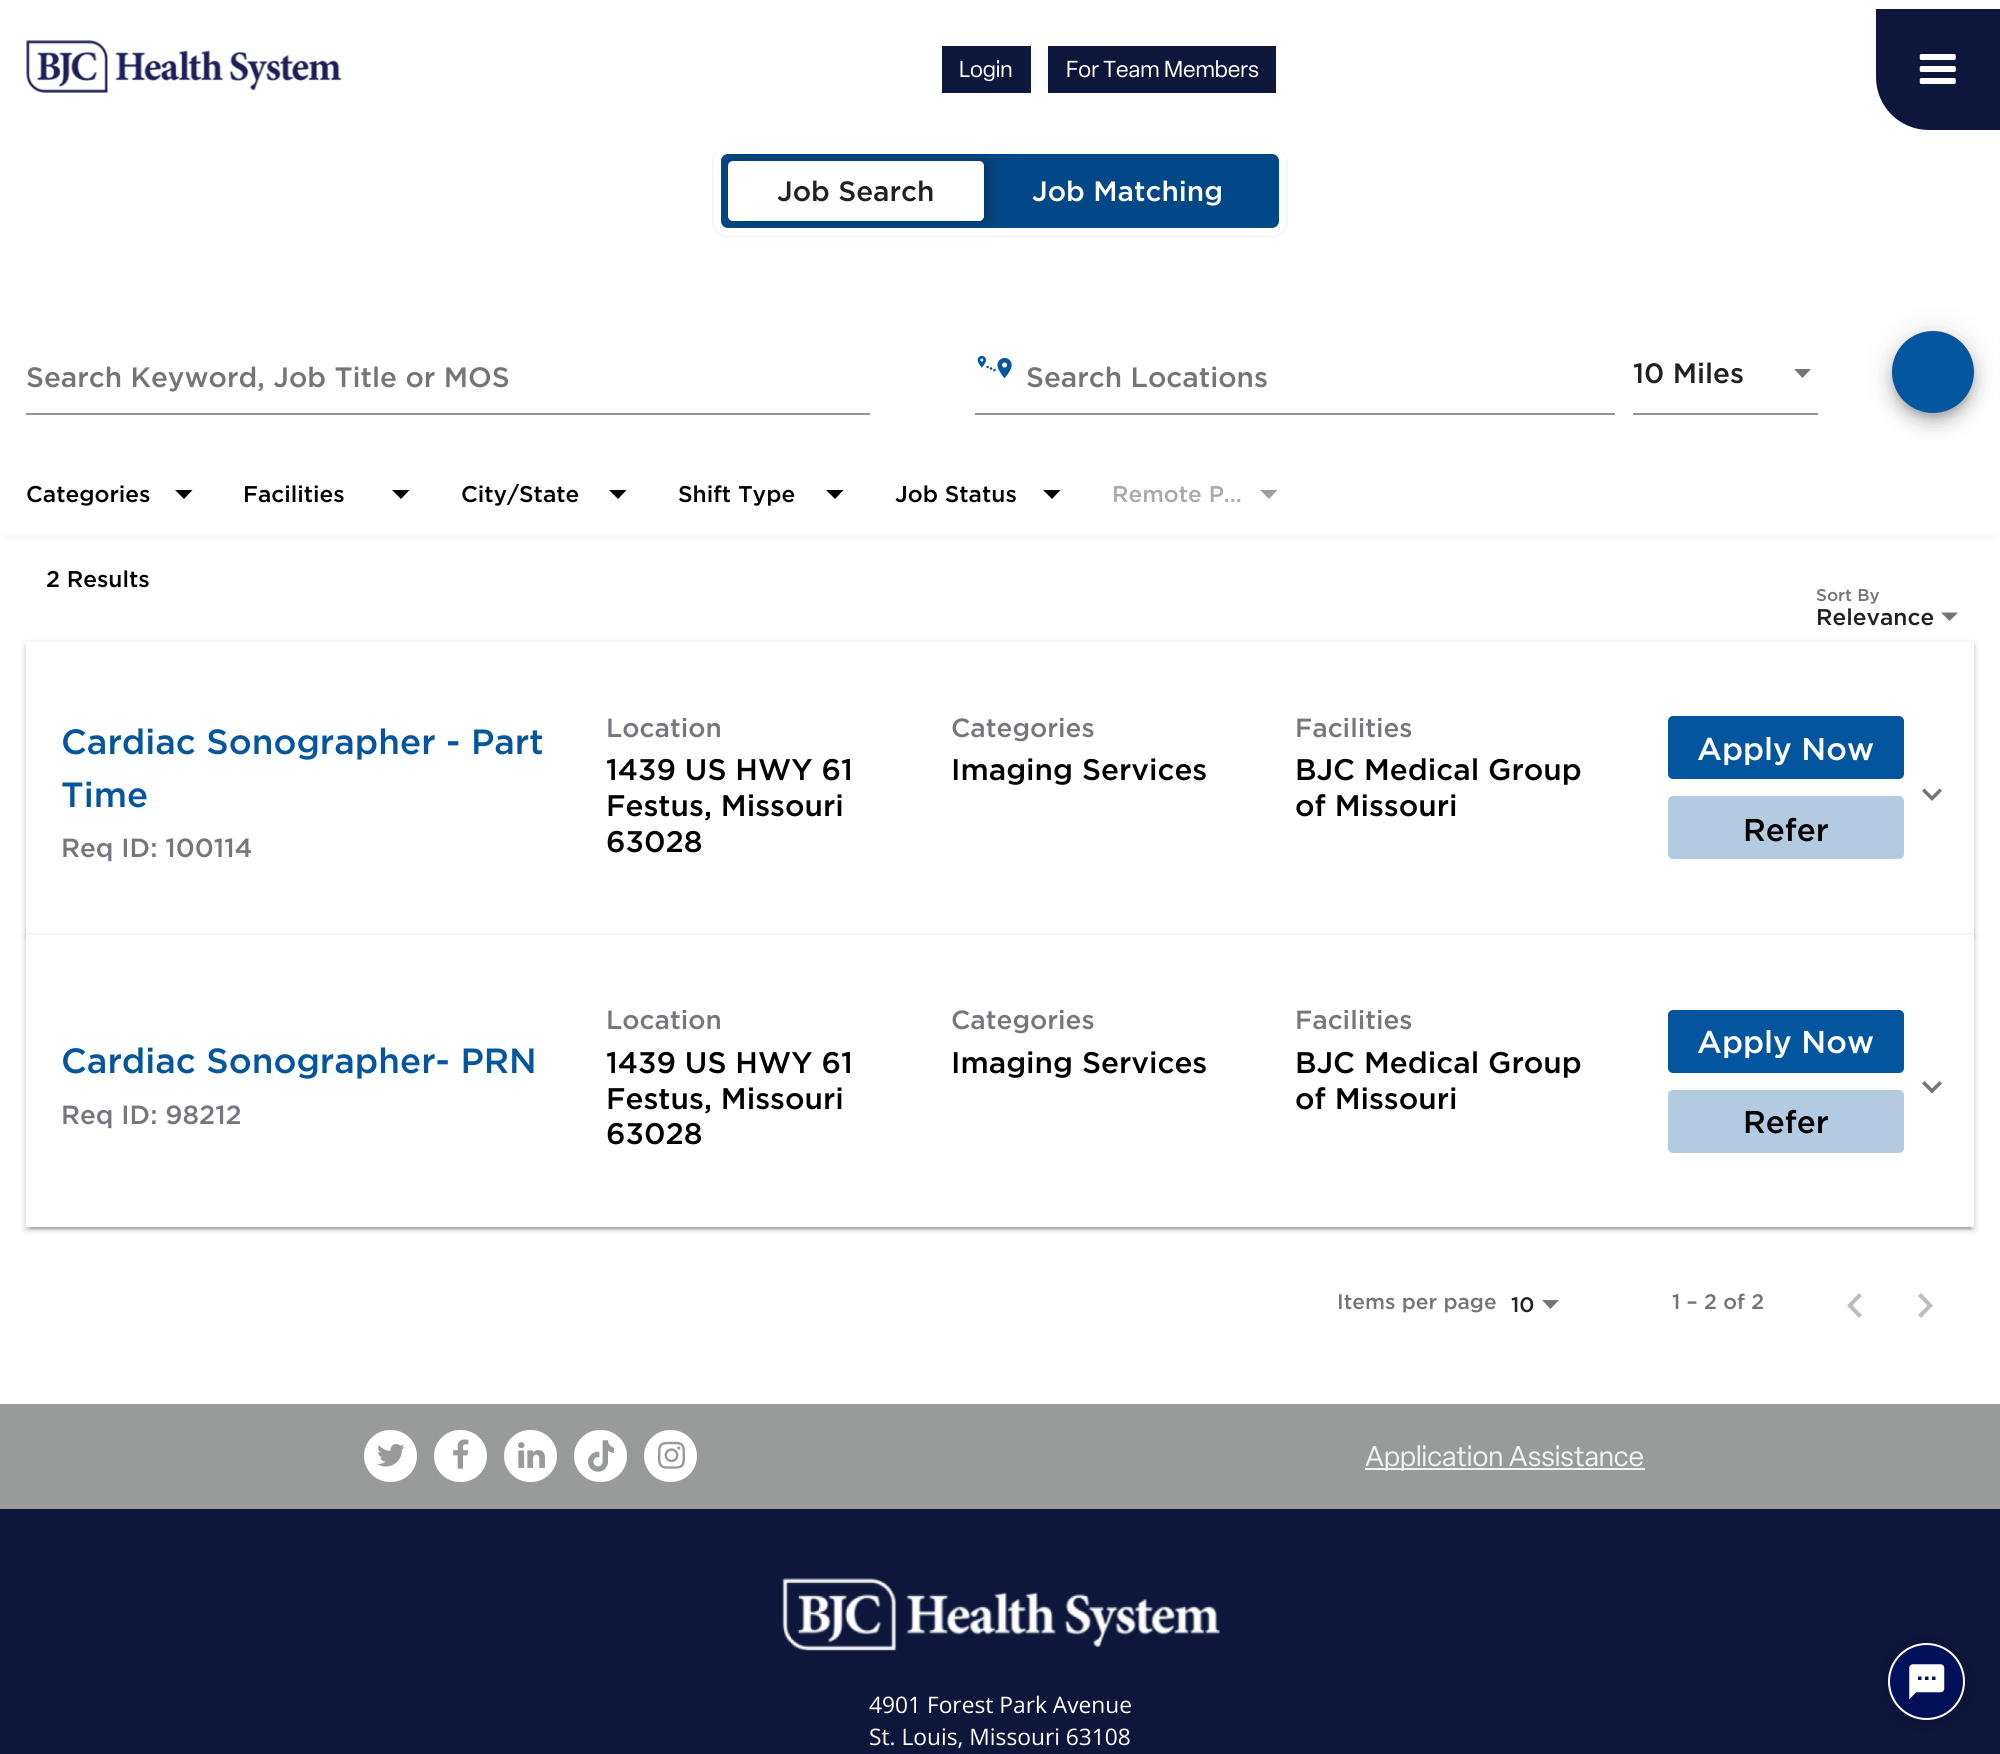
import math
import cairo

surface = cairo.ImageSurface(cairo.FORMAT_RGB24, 2000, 1754)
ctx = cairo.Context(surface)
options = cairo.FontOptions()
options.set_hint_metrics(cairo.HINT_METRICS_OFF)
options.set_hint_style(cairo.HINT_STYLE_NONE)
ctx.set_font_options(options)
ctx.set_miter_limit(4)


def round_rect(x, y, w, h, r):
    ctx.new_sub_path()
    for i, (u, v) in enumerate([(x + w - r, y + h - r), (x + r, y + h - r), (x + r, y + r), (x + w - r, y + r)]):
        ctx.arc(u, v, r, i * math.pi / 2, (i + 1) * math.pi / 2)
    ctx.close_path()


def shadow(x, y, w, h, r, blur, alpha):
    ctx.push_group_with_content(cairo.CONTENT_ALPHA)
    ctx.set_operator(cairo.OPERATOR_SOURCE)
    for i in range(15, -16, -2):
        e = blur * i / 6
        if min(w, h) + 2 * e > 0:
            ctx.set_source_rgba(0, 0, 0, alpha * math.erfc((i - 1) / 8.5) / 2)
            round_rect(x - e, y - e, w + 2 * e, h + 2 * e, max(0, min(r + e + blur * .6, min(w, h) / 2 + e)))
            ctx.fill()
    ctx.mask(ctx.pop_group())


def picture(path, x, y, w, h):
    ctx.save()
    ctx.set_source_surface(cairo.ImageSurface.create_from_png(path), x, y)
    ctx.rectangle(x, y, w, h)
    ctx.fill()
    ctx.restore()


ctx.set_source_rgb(1, 1, 1)
ctx.paint()
picture("img1.png", 26, 40, 316, 53)
ctx.set_source_rgb(0.051, 0.09, 0.235)
ctx.rectangle(942, 46, 89, 47)
ctx.fill()
ctx.select_font_face("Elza")
ctx.set_font_size(22.75)
ctx.set_source_rgb(1, 1, 1)
ctx.move_to(959, 77)
ctx.show_text("Login")
ctx.set_source_rgb(0.051, 0.09, 0.235)
ctx.rectangle(1048, 46, 228, 47)
ctx.fill()
ctx.set_source_rgb(1, 1, 1)
ctx.move_to(1066, 77)
ctx.show_text("For Team Members")
ctx.set_source_rgb(0.051, 0.09, 0.235)
ctx.new_path()
ctx.move_to(1876, 9)
ctx.line_to(2000, 9)
ctx.line_to(2000, 130)
ctx.line_to(1929, 130)
ctx.curve_to(1899.5, 130, 1876, 106.5, 1876, 77)
ctx.close_path()
ctx.fill()
picture("img2.png", 1919, 54, 37, 30)
ctx.set_source_rgb(0, 0, 0)
shadow(5, 207, 1990, 332, 0, 5, 0.04)
ctx.set_source_rgb(1, 1, 1)
ctx.rectangle(2, 204, 1996, 330)
ctx.fill()
ctx.set_source_rgba(0, 0, 0, 0.03)
ctx.new_path()
ctx.move_to(728, 147)
ctx.curve_to(719, 147, 712, 154, 712, 163)
ctx.line_to(712, 222)
ctx.curve_to(712, 231, 719, 238, 728, 238)
ctx.line_to(1272, 238)
ctx.curve_to(1281, 238, 1288, 231, 1288, 222)
ctx.line_to(1288, 163)
ctx.curve_to(1288, 155, 1283, 149, 1276, 147)
ctx.curve_to(1282, 149, 1286, 154, 1286, 161)
ctx.line_to(1286, 220)
ctx.curve_to(1286, 228, 1280, 234, 1272, 234)
ctx.line_to(728, 234)
ctx.curve_to(720, 234, 714, 228, 714, 220)
ctx.line_to(714, 161)
ctx.curve_to(714, 153, 720, 147, 728, 147)
ctx.close_path()
ctx.fill()
ctx.set_source_rgb(0.012, 0.282, 0.525)
round_rect(717.5, 150.5, 565, 81, 10.5)
ctx.fill_preserve()
ctx.set_source_rgb(1, 1, 1)
ctx.set_line_width(7)
ctx.stroke()
ctx.save()
round_rect(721, 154, 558, 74, 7)
ctx.clip()
ctx.set_source_rgb(0, 0, 0)
shadow(733, 161, 256, 60, 5, 7, 0.3)
ctx.restore()
round_rect(728, 161, 256, 60, 5)
ctx.fill()
ctx.select_font_face("Gotham Medium")
ctx.set_font_size(28)
ctx.set_source_rgb(0.129, 0.129, 0.129)
ctx.move_to(777, 201)
ctx.show_text("Job Search")
ctx.set_source_rgb(1, 1, 1)
ctx.move_to(1032, 201)
ctx.show_text("Job Matching")
ctx.set_source_rgb(0.459, 0.459, 0.459)
ctx.move_to(26, 387)
ctx.show_text("Search Keyword, Job Title or MOS")
ctx.set_source_rgb(0.58, 0.58, 0.58)
ctx.rectangle(26, 413, 844, 2)
ctx.fill()
picture("img3.png", 977, 355, 35, 24)
ctx.set_source_rgb(0.459, 0.459, 0.459)
ctx.move_to(1026, 387)
ctx.show_text("Search Locations")
ctx.set_source_rgb(0.58, 0.58, 0.58)
ctx.rectangle(975, 413, 640, 2)
ctx.fill()
ctx.set_source_rgb(0.129, 0.129, 0.129)
ctx.move_to(1633, 383)
ctx.show_text("10 Miles")
ctx.set_source_rgb(0.459, 0.459, 0.459)
ctx.new_path()
ctx.move_to(1794, 369)
ctx.line_to(1811, 369)
ctx.line_to(1802.5, 378)
ctx.close_path()
ctx.fill()
ctx.set_source_rgb(0.58, 0.58, 0.58)
ctx.rectangle(1633, 413, 185, 2)
ctx.fill()
ctx.set_source_rgb(0, 0, 0)
shadow(1892, 333, 82, 82, 41, 16, 0.12)
shadow(1892, 341, 82, 83, 41, 9, 0.14)
shadow(1894, 338, 78, 79, 39, 4.5, 0.2)
ctx.set_source_rgb(0.012, 0.333, 0.62)
ctx.arc(1933, 372, 41, 0, 2 * math.pi)
ctx.fill()
ctx.set_font_size(22.75)
ctx.set_source_rgb(0, 0, 0)
ctx.move_to(26, 502)
ctx.show_text("Categories")
ctx.new_path()
ctx.move_to(175, 490)
ctx.line_to(192.5, 490)
ctx.line_to(184, 499)
ctx.close_path()
ctx.fill()
ctx.move_to(243, 502)
ctx.show_text("Facilities")
ctx.new_path()
ctx.move_to(392, 490)
ctx.line_to(409.5, 490)
ctx.line_to(401, 499)
ctx.close_path()
ctx.fill()
ctx.move_to(461, 502)
ctx.show_text("City/State")
ctx.new_path()
ctx.move_to(609, 490)
ctx.line_to(626.5, 490)
ctx.line_to(618, 499)
ctx.close_path()
ctx.fill()
ctx.move_to(678, 502)
ctx.show_text("Shift Type")
ctx.new_path()
ctx.move_to(826, 490)
ctx.line_to(843.5, 490)
ctx.line_to(835, 499)
ctx.close_path()
ctx.fill()
ctx.move_to(895, 502)
ctx.show_text("Job Status")
ctx.new_path()
ctx.move_to(1043, 490)
ctx.line_to(1060.5, 490)
ctx.line_to(1052, 499)
ctx.close_path()
ctx.fill()
ctx.set_source_rgb(0.667, 0.667, 0.667)
ctx.move_to(1112, 502)
ctx.show_text("Remote P…")
ctx.set_source_rgb(0.62, 0.62, 0.62)
ctx.new_path()
ctx.move_to(1260, 490)
ctx.line_to(1277.5, 490)
ctx.line_to(1269, 499)
ctx.close_path()
ctx.fill()
ctx.set_source_rgb(0, 0, 0)
ctx.move_to(46, 587)
ctx.show_text("2 Results")
ctx.set_font_size(17)
ctx.set_source_rgb(0.459, 0.459, 0.459)
ctx.move_to(1816, 601)
ctx.show_text("Sort By")
ctx.set_font_size(22.75)
ctx.set_source_rgb(0.129, 0.129, 0.129)
ctx.move_to(1816, 625)
ctx.show_text("Relevance")
ctx.set_source_rgb(0.459, 0.459, 0.459)
ctx.new_path()
ctx.move_to(1941, 612.5)
ctx.line_to(1958, 612.5)
ctx.line_to(1949.5, 621)
ctx.close_path()
ctx.fill()
ctx.set_source_rgb(0, 0, 0)
shadow(26, 644, 1948, 292, 0, 4.5, 0.12)
shadow(26, 646, 1948, 292, 0, 2, 0.14)
ctx.set_source_rgb(1, 1, 1)
ctx.rectangle(26, 642, 1948, 293)
ctx.fill()
ctx.set_font_size(35)
ctx.set_source_rgb(0.012, 0.333, 0.62)
ctx.move_to(61, 754)
ctx.show_text("Cardiac Sonographer - Part")
ctx.move_to(61, 807)
ctx.show_text("Time")
ctx.set_font_size(26.25)
ctx.set_source_rgb(0.463, 0.463, 0.494)
ctx.move_to(61, 857)
ctx.show_text("Req ID: 100114")
ctx.move_to(606, 737)
ctx.show_text("Location")
ctx.set_font_size(29.75)
ctx.set_source_rgb(0, 0, 0)
ctx.move_to(606, 780)
ctx.show_text("1439 US HWY 61")
ctx.move_to(606, 816)
ctx.show_text("Festus, Missouri")
ctx.move_to(606, 852)
ctx.show_text("63028")
ctx.set_font_size(26.25)
ctx.set_source_rgb(0.463, 0.463, 0.494)
ctx.move_to(951, 737)
ctx.show_text("Categories")
ctx.set_font_size(29.75)
ctx.set_source_rgb(0, 0, 0)
ctx.move_to(951, 780)
ctx.show_text("Imaging Services")
ctx.set_font_size(26.25)
ctx.set_source_rgb(0.463, 0.463, 0.494)
ctx.move_to(1295, 737)
ctx.show_text("Facilities")
ctx.set_font_size(29.75)
ctx.set_source_rgb(0, 0, 0)
ctx.move_to(1295, 780)
ctx.show_text("BJC Medical Group")
ctx.move_to(1295, 816)
ctx.show_text("of Missouri")
ctx.set_source_rgb(0.012, 0.333, 0.62)
round_rect(1668, 716, 236, 63, 5)
ctx.fill()
ctx.set_font_size(31.5)
ctx.set_source_rgb(1, 1, 1)
ctx.move_to(1697, 760)
ctx.show_text("Apply Now")
ctx.set_source_rgb(0.702, 0.796, 0.882)
round_rect(1668, 796, 236, 63, 5)
ctx.fill()
ctx.set_source_rgb(0, 0, 0)
ctx.move_to(1743, 841)
ctx.show_text("Refer")
ctx.set_source_rgb(0.459, 0.459, 0.459)
ctx.new_path()
ctx.move_to(1942, 791)
ctx.line_to(1932, 801)
ctx.line_to(1932, 796)
ctx.line_to(1939.5, 788.5)
ctx.close_path()
ctx.move_to(1932, 801)
ctx.line_to(1922, 791)
ctx.line_to(1924.5, 788.5)
ctx.line_to(1932, 796)
ctx.close_path()
ctx.fill()
ctx.set_source_rgb(0, 0, 0)
shadow(26, 936, 1948, 293, 0, 4.5, 0.12)
shadow(26, 938, 1948, 292, 0, 2, 0.14)
shadow(30, 943, 1941, 286, 0, 1, 0.2)
ctx.set_source_rgb(1, 1, 1)
ctx.rectangle(26, 935, 1948, 292)
ctx.fill()
ctx.set_font_size(35)
ctx.set_source_rgb(0.012, 0.333, 0.62)
ctx.move_to(61, 1073)
ctx.show_text("Cardiac Sonographer- PRN")
ctx.set_font_size(26.25)
ctx.set_source_rgb(0.463, 0.463, 0.494)
ctx.move_to(61, 1124)
ctx.show_text("Req ID: 98212")
ctx.move_to(606, 1029)
ctx.show_text("Location")
ctx.set_font_size(29.75)
ctx.set_source_rgb(0, 0, 0)
ctx.move_to(606, 1073)
ctx.show_text("1439 US HWY 61")
ctx.move_to(606, 1109)
ctx.show_text("Festus, Missouri")
ctx.move_to(606, 1144)
ctx.show_text("63028")
ctx.set_font_size(26.25)
ctx.set_source_rgb(0.463, 0.463, 0.494)
ctx.move_to(951, 1029)
ctx.show_text("Categories")
ctx.set_font_size(29.75)
ctx.set_source_rgb(0, 0, 0)
ctx.move_to(951, 1073)
ctx.show_text("Imaging Services")
ctx.set_font_size(26.25)
ctx.set_source_rgb(0.463, 0.463, 0.494)
ctx.move_to(1295, 1029)
ctx.show_text("Facilities")
ctx.set_font_size(29.75)
ctx.set_source_rgb(0, 0, 0)
ctx.move_to(1295, 1073)
ctx.show_text("BJC Medical Group")
ctx.move_to(1295, 1109)
ctx.show_text("of Missouri")
ctx.set_source_rgb(0.012, 0.333, 0.62)
round_rect(1668, 1010, 236, 63, 5)
ctx.fill()
ctx.set_font_size(31.5)
ctx.set_source_rgb(1, 1, 1)
ctx.move_to(1697, 1053)
ctx.show_text("Apply Now")
ctx.set_source_rgb(0.702, 0.796, 0.882)
round_rect(1668, 1090, 236, 63, 5)
ctx.fill()
ctx.set_source_rgb(0, 0, 0)
ctx.move_to(1743, 1133)
ctx.show_text("Refer")
ctx.set_source_rgb(0.459, 0.459, 0.459)
ctx.new_path()
ctx.move_to(1942, 1083.5)
ctx.line_to(1932, 1093.5)
ctx.line_to(1932, 1088.5)
ctx.line_to(1939.5, 1081)
ctx.close_path()
ctx.move_to(1932, 1093.5)
ctx.line_to(1922, 1083.5)
ctx.line_to(1924.5, 1081)
ctx.line_to(1932, 1088.5)
ctx.close_path()
ctx.fill()
ctx.set_font_size(21)
ctx.move_to(1337, 1309)
ctx.show_text("Items per page")
ctx.set_source_rgb(0.129, 0.129, 0.129)
ctx.move_to(1511, 1312)
ctx.show_text("10")
ctx.set_source_rgb(0.459, 0.459, 0.459)
ctx.new_path()
ctx.move_to(1542, 1300)
ctx.line_to(1559, 1300)
ctx.line_to(1550.5, 1309)
ctx.close_path()
ctx.fill()
ctx.move_to(1672, 1309)
ctx.show_text("1 – 2 of 2")
ctx.set_source_rgb(0.741, 0.741, 0.741)
ctx.new_path()
ctx.move_to(1862, 1296)
ctx.line_to(1859, 1293)
ctx.line_to(1847, 1305.5)
ctx.line_to(1859, 1318)
ctx.line_to(1862, 1315)
ctx.line_to(1852.5, 1305.5)
ctx.close_path()
ctx.fill()
ctx.new_path()
ctx.move_to(1921, 1293)
ctx.line_to(1918, 1296)
ctx.line_to(1927.5, 1305.5)
ctx.line_to(1918, 1315)
ctx.line_to(1921, 1318)
ctx.line_to(1933, 1305.5)
ctx.close_path()
ctx.fill()
ctx.set_source_rgb(0.051, 0.09, 0.235)
ctx.rectangle(0, 1509, 2000, 245)
ctx.fill()
ctx.set_source_rgb(0.6, 0.604, 0.604)
ctx.rectangle(0, 1404, 2000, 105)
ctx.fill()
ctx.set_source_rgb(1, 1, 1)
round_rect(364, 1430, 53, 52, 26)
ctx.fill()
picture("img4.png", 377, 1444, 28, 23)
round_rect(434, 1430, 53, 52, 26)
ctx.fill()
picture("img5.png", 453, 1439, 16, 30)
round_rect(504, 1430, 53, 52, 26)
ctx.fill()
picture("img6.png", 518, 1442, 27, 26)
round_rect(574, 1430, 53, 52, 26)
ctx.fill()
picture("img7.png", 588, 1440, 26, 32)
round_rect(644, 1430, 53, 52, 26)
ctx.fill()
picture("img8.png", 658, 1441, 27, 28)
ctx.set_source_rgb(0.949, 0.949, 0.949)
ctx.rectangle(1365, 1468, 280, 2)
ctx.fill()
ctx.select_font_face("Elza")
ctx.set_font_size(28)
ctx.move_to(1365, 1466)
ctx.show_text("Application Assistance")
picture("img9.png", 782, 1578, 438, 73)
ctx.select_font_face("Open Sans")
ctx.set_font_size(22.75)
ctx.set_source_rgb(1, 1, 1)
ctx.move_to(869, 1713)
ctx.show_text("4901 Forest Park Avenue")
ctx.move_to(869, 1745)
ctx.show_text("St. Louis, Missouri 63108")
ctx.set_source_rgb(0, 0, 0)
shadow(1888, 1645, 77, 77, 38.5, 9, 0.2)
ctx.set_source_rgb(0.008, 0.059, 0.349)
ctx.arc(1926.5, 1681.5, 37.5, 0, 2 * math.pi)
ctx.fill_preserve()
ctx.set_source_rgb(1, 1, 1)
ctx.set_line_width(2)
ctx.stroke()
picture("img10.png", 1909, 1664, 36, 36)
surface.write_to_png("page.png")
